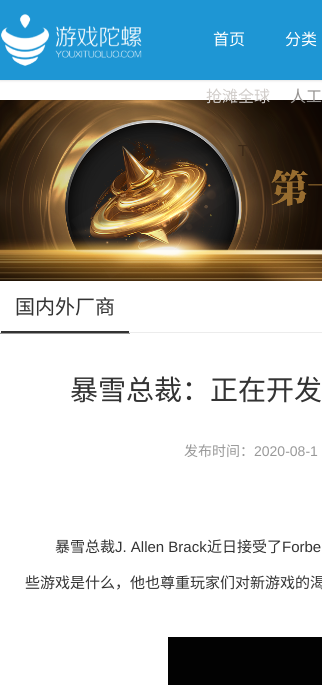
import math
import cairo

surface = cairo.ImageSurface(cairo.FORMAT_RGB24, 322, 685)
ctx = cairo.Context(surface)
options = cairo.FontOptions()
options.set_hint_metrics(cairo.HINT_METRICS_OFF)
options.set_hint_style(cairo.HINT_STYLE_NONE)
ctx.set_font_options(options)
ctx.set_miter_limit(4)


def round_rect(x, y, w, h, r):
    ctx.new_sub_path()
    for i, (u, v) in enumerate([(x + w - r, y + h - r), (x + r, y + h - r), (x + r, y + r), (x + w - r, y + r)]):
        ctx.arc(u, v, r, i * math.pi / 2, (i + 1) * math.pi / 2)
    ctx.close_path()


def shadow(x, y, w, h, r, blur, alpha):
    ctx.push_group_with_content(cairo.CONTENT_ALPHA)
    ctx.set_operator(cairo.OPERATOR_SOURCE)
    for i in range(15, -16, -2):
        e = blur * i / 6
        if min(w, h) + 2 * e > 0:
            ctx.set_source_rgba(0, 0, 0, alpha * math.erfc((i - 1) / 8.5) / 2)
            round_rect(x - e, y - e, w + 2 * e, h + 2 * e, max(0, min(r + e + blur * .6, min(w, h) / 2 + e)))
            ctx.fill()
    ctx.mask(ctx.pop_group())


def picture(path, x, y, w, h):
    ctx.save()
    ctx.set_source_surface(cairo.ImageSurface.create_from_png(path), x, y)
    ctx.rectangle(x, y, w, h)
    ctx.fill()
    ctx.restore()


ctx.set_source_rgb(1, 1, 1)
ctx.paint()
ctx.set_source_rgb(0, 0, 0)
shadow(0, 1, 322, 80, 0, 1, 0.1)
ctx.set_source_rgb(0.118, 0.588, 0.831)
ctx.rectangle(0, 0, 322, 80)
ctx.fill()
picture("img1.png", 1, 14, 141, 52)
ctx.select_font_face("Noto Sans CJK SC")
ctx.set_font_size(16)
ctx.set_source_rgb(1, 1, 1)
ctx.move_to(213, 45)
ctx.show_text("首页")
ctx.move_to(285, 45)
ctx.show_text("分类")
picture("img2.png", 0, 100, 322, 181)
ctx.set_source_rgb(0.82, 0.804, 0.792)
ctx.move_to(206, 102)
ctx.show_text("抢滩全球")
ctx.set_source_rgb(0.588, 0.576, 0.569)
ctx.move_to(290, 102)
ctx.show_text("人工")
ctx.select_font_face("Liberation Sans")
ctx.set_source_rgb(0.235, 0.161, 0.09)
ctx.move_to(238, 156)
ctx.show_text("T")
ctx.set_source_rgb(0.922, 0.922, 0.922)
ctx.rectangle(0, 332, 322, 1)
ctx.fill()
ctx.set_source_rgb(0.6, 0.6, 0.6)
ctx.rectangle(0, 333, 130, 1)
ctx.fill()
ctx.select_font_face("Noto Sans CJK SC")
ctx.set_font_size(20)
ctx.set_source_rgb(0.2, 0.2, 0.2)
ctx.move_to(15, 314)
ctx.show_text("国内外厂商")
ctx.rectangle(1, 331, 128, 2)
ctx.fill()
ctx.set_font_size(28)
ctx.move_to(70, 400)
ctx.show_text("暴雪总裁：正在开发")
ctx.set_font_size(14)
ctx.set_source_rgb(0.6, 0.6, 0.6)
ctx.move_to(184, 456)
ctx.show_text("发布时间：")
ctx.select_font_face("Liberation Sans")
ctx.move_to(254, 456)
ctx.show_text("2020-08-1")
ctx.select_font_face("Noto Sans CJK SC")
ctx.set_font_size(15)
ctx.set_source_rgb(0.2, 0.2, 0.2)
ctx.move_to(55, 552)
ctx.show_text("暴雪总裁")
ctx.select_font_face("Liberation Sans")
ctx.move_to(115, 552)
ctx.show_text("J. Allen Brack")
ctx.select_font_face("Noto Sans CJK SC")
ctx.move_to(207, 552)
ctx.show_text("近日接受了")
ctx.select_font_face("Liberation Sans")
ctx.move_to(282, 552)
ctx.show_text("Forbe")
ctx.select_font_face("Noto Sans CJK SC")
ctx.move_to(25, 588)
ctx.show_text("些游戏是什么，他也尊重玩家们对新游戏的渴")
ctx.set_source_rgb(0.008, 0.008, 0.008)
ctx.rectangle(168, 637, 154, 48)
ctx.fill()
surface.write_to_png("page.png")
